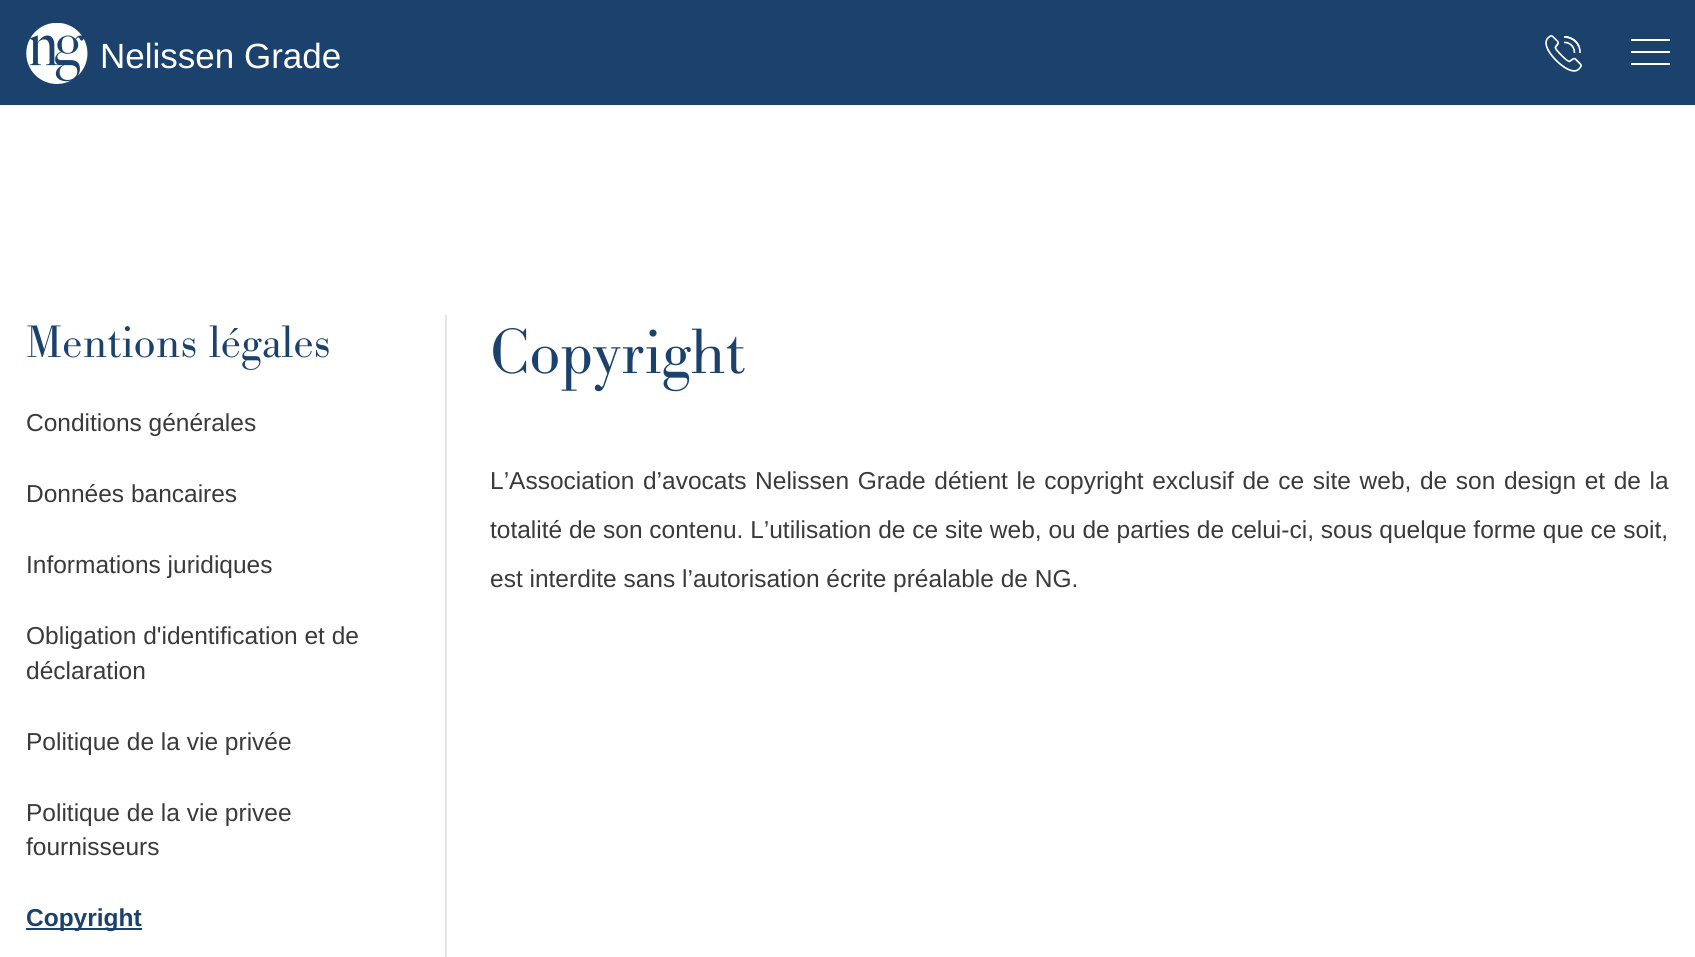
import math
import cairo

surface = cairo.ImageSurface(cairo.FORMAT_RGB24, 1695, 957)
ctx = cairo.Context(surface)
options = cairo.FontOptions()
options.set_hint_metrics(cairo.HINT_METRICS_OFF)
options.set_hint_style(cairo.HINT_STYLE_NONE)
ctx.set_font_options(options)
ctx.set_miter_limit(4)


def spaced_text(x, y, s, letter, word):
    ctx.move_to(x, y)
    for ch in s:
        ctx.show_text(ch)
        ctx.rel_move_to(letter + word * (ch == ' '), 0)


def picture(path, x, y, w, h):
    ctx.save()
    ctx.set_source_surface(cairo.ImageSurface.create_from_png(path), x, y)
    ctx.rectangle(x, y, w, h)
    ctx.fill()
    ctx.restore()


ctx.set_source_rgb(1, 1, 1)
ctx.paint()
ctx.set_source_rgb(0.106, 0.255, 0.427)
ctx.rectangle(0, 0, 1695, 105)
ctx.fill()
picture("img1.png", 26, 23, 62, 61)
ctx.select_font_face("Liberation Sans")
ctx.set_font_size(35)
ctx.set_source_rgb(1, 1, 1)
ctx.move_to(100, 68)
ctx.show_text("Nelissen Grade")
picture("img2.png", 1545, 35, 37, 37)
ctx.rectangle(1631, 51, 39, 2)
ctx.fill()
ctx.rectangle(1631, 39, 39, 2)
ctx.fill()
ctx.rectangle(1631, 63, 39, 2)
ctx.fill()
ctx.set_source_rgb(0.898, 0.898, 0.898)
ctx.rectangle(445, 315, 2, 642)
ctx.fill()
ctx.select_font_face("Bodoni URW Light")
ctx.set_font_size(47.25)
ctx.set_source_rgb(0.106, 0.255, 0.427)
ctx.move_to(26, 357)
ctx.show_text("Mentions légales")
ctx.select_font_face("Liberation Sans")
ctx.set_font_size(24.5)
ctx.set_source_rgb(0.227, 0.227, 0.227)
ctx.move_to(26, 431)
ctx.show_text("Conditions générales")
ctx.move_to(26, 502)
ctx.show_text("Données bancaires")
ctx.move_to(26, 573)
ctx.show_text("Informations juridiques")
ctx.move_to(26, 644)
ctx.show_text("Obligation d'identification et de")
ctx.move_to(26, 679)
ctx.show_text("déclaration")
ctx.move_to(26, 750)
ctx.show_text("Politique de la vie privée")
ctx.move_to(26, 821)
ctx.show_text("Politique de la vie privee")
ctx.move_to(26, 855)
ctx.show_text("fournisseurs")
ctx.set_source_rgb(0.106, 0.255, 0.427)
ctx.rectangle(26, 928, 116, 2)
ctx.fill()
ctx.select_font_face("Liberation Sans", cairo.FONT_SLANT_NORMAL, cairo.FONT_WEIGHT_BOLD)
ctx.move_to(26, 926)
ctx.show_text("Copyright")
ctx.select_font_face("Bodoni URW Light")
ctx.set_font_size(66.5)
ctx.move_to(490, 373)
ctx.show_text("Copyright")
ctx.select_font_face("Liberation Sans")
ctx.set_font_size(24.5)
ctx.set_source_rgb(0.227, 0.227, 0.227)
spaced_text(490, 489, "L’Association d’avocats Nelissen Grade détient le copyright exclusif de ce site web, de son design et de la", 0, 1.8)
ctx.move_to(490, 538)
ctx.show_text("totalité de son contenu. L’utilisation de ce site web, ou de parties de celui-ci, sous quelque forme que ce soit,")
ctx.move_to(490, 587)
ctx.show_text("est interdite sans l’autorisation écrite préalable de NG.")
surface.write_to_png("page.png")
